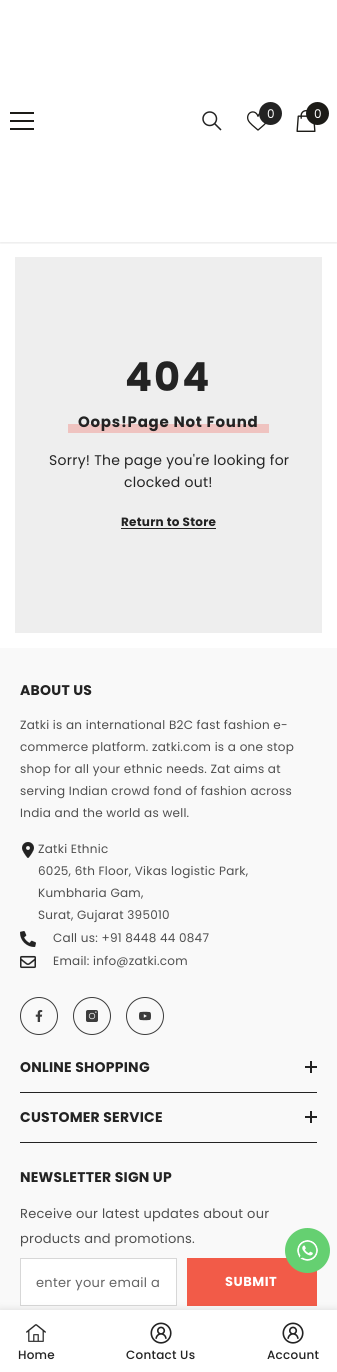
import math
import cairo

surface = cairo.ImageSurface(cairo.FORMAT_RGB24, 337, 1372)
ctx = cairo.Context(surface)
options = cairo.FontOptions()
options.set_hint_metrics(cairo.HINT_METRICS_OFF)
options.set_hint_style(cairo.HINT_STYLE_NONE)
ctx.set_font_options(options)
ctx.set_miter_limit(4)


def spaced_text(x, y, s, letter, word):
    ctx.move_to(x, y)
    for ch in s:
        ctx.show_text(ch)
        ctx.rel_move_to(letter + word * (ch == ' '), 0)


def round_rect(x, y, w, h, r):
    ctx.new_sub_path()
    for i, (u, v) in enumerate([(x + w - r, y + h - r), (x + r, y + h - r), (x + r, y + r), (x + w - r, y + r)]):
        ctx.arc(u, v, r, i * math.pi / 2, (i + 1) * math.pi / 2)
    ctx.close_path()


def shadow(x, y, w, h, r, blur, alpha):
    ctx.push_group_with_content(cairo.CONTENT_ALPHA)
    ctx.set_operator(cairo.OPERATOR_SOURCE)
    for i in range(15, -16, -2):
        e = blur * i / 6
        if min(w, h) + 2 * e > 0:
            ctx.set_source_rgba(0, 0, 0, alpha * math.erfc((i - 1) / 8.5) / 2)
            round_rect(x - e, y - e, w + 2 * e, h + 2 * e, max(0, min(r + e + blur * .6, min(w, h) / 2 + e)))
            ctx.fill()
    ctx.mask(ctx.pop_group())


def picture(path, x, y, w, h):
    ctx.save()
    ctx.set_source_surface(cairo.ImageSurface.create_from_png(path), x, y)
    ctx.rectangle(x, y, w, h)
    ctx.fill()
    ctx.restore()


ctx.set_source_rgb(1, 1, 1)
ctx.paint()
ctx.save()
ctx.rectangle(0, 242, 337, 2)
ctx.clip()
ctx.set_source_rgb(0, 0, 0)
shadow(0, 1, 337, 242, 0, 1.5, 0.1)
ctx.restore()
ctx.set_source_rgb(0.11, 0.106, 0.09)
ctx.rectangle(10, 120, 24, 2)
ctx.fill()
ctx.rectangle(10, 112, 24, 2)
ctx.fill()
ctx.rectangle(10, 128, 24, 2)
ctx.fill()
picture("img1.png", 202, 111, 20, 20)
picture("img2.png", 247, 111, 19, 20)
ctx.set_source_rgb(0.137, 0.137, 0.137)
ctx.arc(270.5, 113.5, 11.5, 0, 2 * math.pi)
ctx.fill()
ctx.select_font_face("Poppins")
ctx.set_font_size(12)
ctx.set_source_rgb(1, 1, 1)
ctx.move_to(267, 118)
ctx.show_text("0")
picture("img3.png", 296, 110, 20, 22)
ctx.set_source_rgb(0.11, 0.106, 0.09)
ctx.arc(317.5, 113.5, 11.5, 0, 2 * math.pi)
ctx.fill()
ctx.set_source_rgb(1, 1, 1)
ctx.move_to(314, 118)
ctx.show_text("0")
ctx.set_source_rgb(0.933, 0.933, 0.933)
ctx.rectangle(15, 257, 307, 376)
ctx.fill()
ctx.select_font_face("Poppins", cairo.FONT_SLANT_NORMAL, cairo.FONT_WEIGHT_BOLD)
ctx.set_font_size(40)
ctx.set_source_rgb(0.137, 0.137, 0.137)
spaced_text(125, 391, "404", 2, 0)
ctx.set_source_rgb(0.937, 0.765, 0.753)
ctx.rectangle(68, 424, 201, 9)
ctx.fill()
ctx.set_font_size(15)
ctx.set_source_rgb(0.137, 0.137, 0.137)
spaced_text(78, 427, "Oops!Page Not Found", 0.75, 0)
ctx.select_font_face("Poppins")
ctx.set_font_size(14)
spaced_text(49, 465, "Sorry! The page you're looking for", 0.25, 0)
spaced_text(124, 487, "clocked out!", 0.25, 0)
ctx.select_font_face("Poppins", cairo.FONT_SLANT_NORMAL, cairo.FONT_WEIGHT_BOLD)
ctx.set_font_size(12)
spaced_text(121, 526, "Return to Store", 0.25, 0)
ctx.rectangle(121, 528, 95, 1)
ctx.fill()
ctx.set_source_rgb(0.973, 0.973, 0.973)
ctx.rectangle(0, 648, 337, 662)
ctx.fill()
ctx.set_font_size(14)
ctx.set_source_rgb(0.137, 0.137, 0.137)
spaced_text(20, 695, "ABOUT US", 0.25, 0)
ctx.select_font_face("Poppins")
ctx.set_font_size(12)
ctx.set_source_rgb(0.306, 0.306, 0.306)
spaced_text(20, 729, "Zatki is an international B2C fast fashion e-", 0.25, 0)
spaced_text(20, 751, "commerce platform. zatki.com is a one stop", 0.25, 0)
spaced_text(20, 773, "shop for all your ethnic needs. Zat aims at", 0.25, 0)
spaced_text(20, 795, "serving Indian crowd fond of fashion across", 0.25, 0)
spaced_text(20, 817, "India and the world as well.", 0.25, 0)
picture("img4.png", 22, 842, 12, 16)
spaced_text(38, 853, "Zatki Ethnic", 0.25, 0)
spaced_text(38, 875, "6025, 6th Floor, Vikas logistic Park,", 0.25, 0)
spaced_text(38, 897, "Kumbharia Gam,", 0.25, 0)
spaced_text(38, 919, "Surat, Gujarat 395010", 0.25, 0)
picture("img5.png", 20, 931, 16, 16)
spaced_text(53, 942, "Call us: +91 8448 44 0847", 0.25, 0)
picture("img6.png", 20, 955, 16, 14)
spaced_text(53, 965, "Email: info@zatki.com", 0.25, 0)
ctx.new_path()
ctx.arc(39, 1016, 18.5, 0, 2 * math.pi)
ctx.set_source_rgb(0.235, 0.235, 0.235)
ctx.set_line_width(1)
ctx.stroke()
picture("img7.png", 35, 1010, 8, 12)
ctx.arc(92, 1016, 18.5, 0, 2 * math.pi)
ctx.stroke()
picture("img8.png", 86, 1010, 12, 12)
ctx.arc(145, 1016, 18.5, 0, 2 * math.pi)
ctx.stroke()
picture("img9.png", 139, 1011, 12, 10)
ctx.set_source_rgb(0.137, 0.137, 0.137)
ctx.rectangle(20, 1092, 297, 1)
ctx.fill()
ctx.select_font_face("Poppins", cairo.FONT_SLANT_NORMAL, cairo.FONT_WEIGHT_BOLD)
ctx.set_font_size(14)
spaced_text(20, 1072, "ONLINE SHOPPING", 0.25, 0)
ctx.rectangle(310, 1061, 2, 12)
ctx.fill()
ctx.rectangle(305, 1066, 12, 2)
ctx.fill()
ctx.rectangle(20, 1142, 297, 1)
ctx.fill()
spaced_text(20, 1122, "CUSTOMER SERVICE", 0.25, 0)
ctx.rectangle(310, 1111, 2, 12)
ctx.fill()
ctx.rectangle(305, 1116, 12, 2)
ctx.fill()
spaced_text(20, 1182, "NEWSLETTER SIGN UP", 0.25, 0)
ctx.select_font_face("Poppins")
ctx.set_font_size(13)
ctx.set_source_rgb(0.306, 0.306, 0.306)
spaced_text(20, 1218, "Receive our latest updates about our", 0.25, 0)
spaced_text(20, 1243, "products and promotions.", 0.25, 0)
ctx.set_source_rgb(1, 1, 1)
ctx.rectangle(20.5, 1258.5, 156, 47)
ctx.fill_preserve()
ctx.set_source_rgb(0.843, 0.843, 0.843)
ctx.stroke()
ctx.set_source_rgb(0.392, 0.392, 0.392)
spaced_text(36, 1287, "enter your email a", 0.3, 0)
ctx.set_source_rgb(0.949, 0.357, 0.282)
ctx.rectangle(187, 1258, 130, 48)
ctx.fill()
ctx.select_font_face("Poppins", cairo.FONT_SLANT_NORMAL, cairo.FONT_WEIGHT_BOLD)
ctx.set_source_rgb(1, 1, 1)
spaced_text(225, 1286, "SUBMIT", 0.5, 0)
ctx.set_source_rgb(0, 0, 0)
shadow(0, 1310, 337, 62, 0, 4.5, 0.12)
ctx.set_source_rgb(1, 1, 1)
ctx.rectangle(0, 1310, 337, 62)
ctx.fill()
picture("img10.png", 26, 1324, 20, 18)
ctx.select_font_face("Poppins Medium")
ctx.set_font_size(12)
ctx.set_source_rgb(0.137, 0.137, 0.137)
spaced_text(18, 1359, "Home", 0.25, 0)
picture("img11.png", 150, 1322, 22, 22)
spaced_text(126, 1359, "Contact Us", 0.25, 0)
picture("img12.png", 282, 1322, 22, 22)
spaced_text(267, 1359, "Account", 0.25, 0)
ctx.set_source_rgb(0.396, 0.816, 0.443)
ctx.new_path()
ctx.arc(307.5, 1250.5, 22.5, 0, 2 * math.pi)
ctx.fill()
picture("img13.png", 297, 1240, 21, 21)
surface.write_to_png("page.png")
